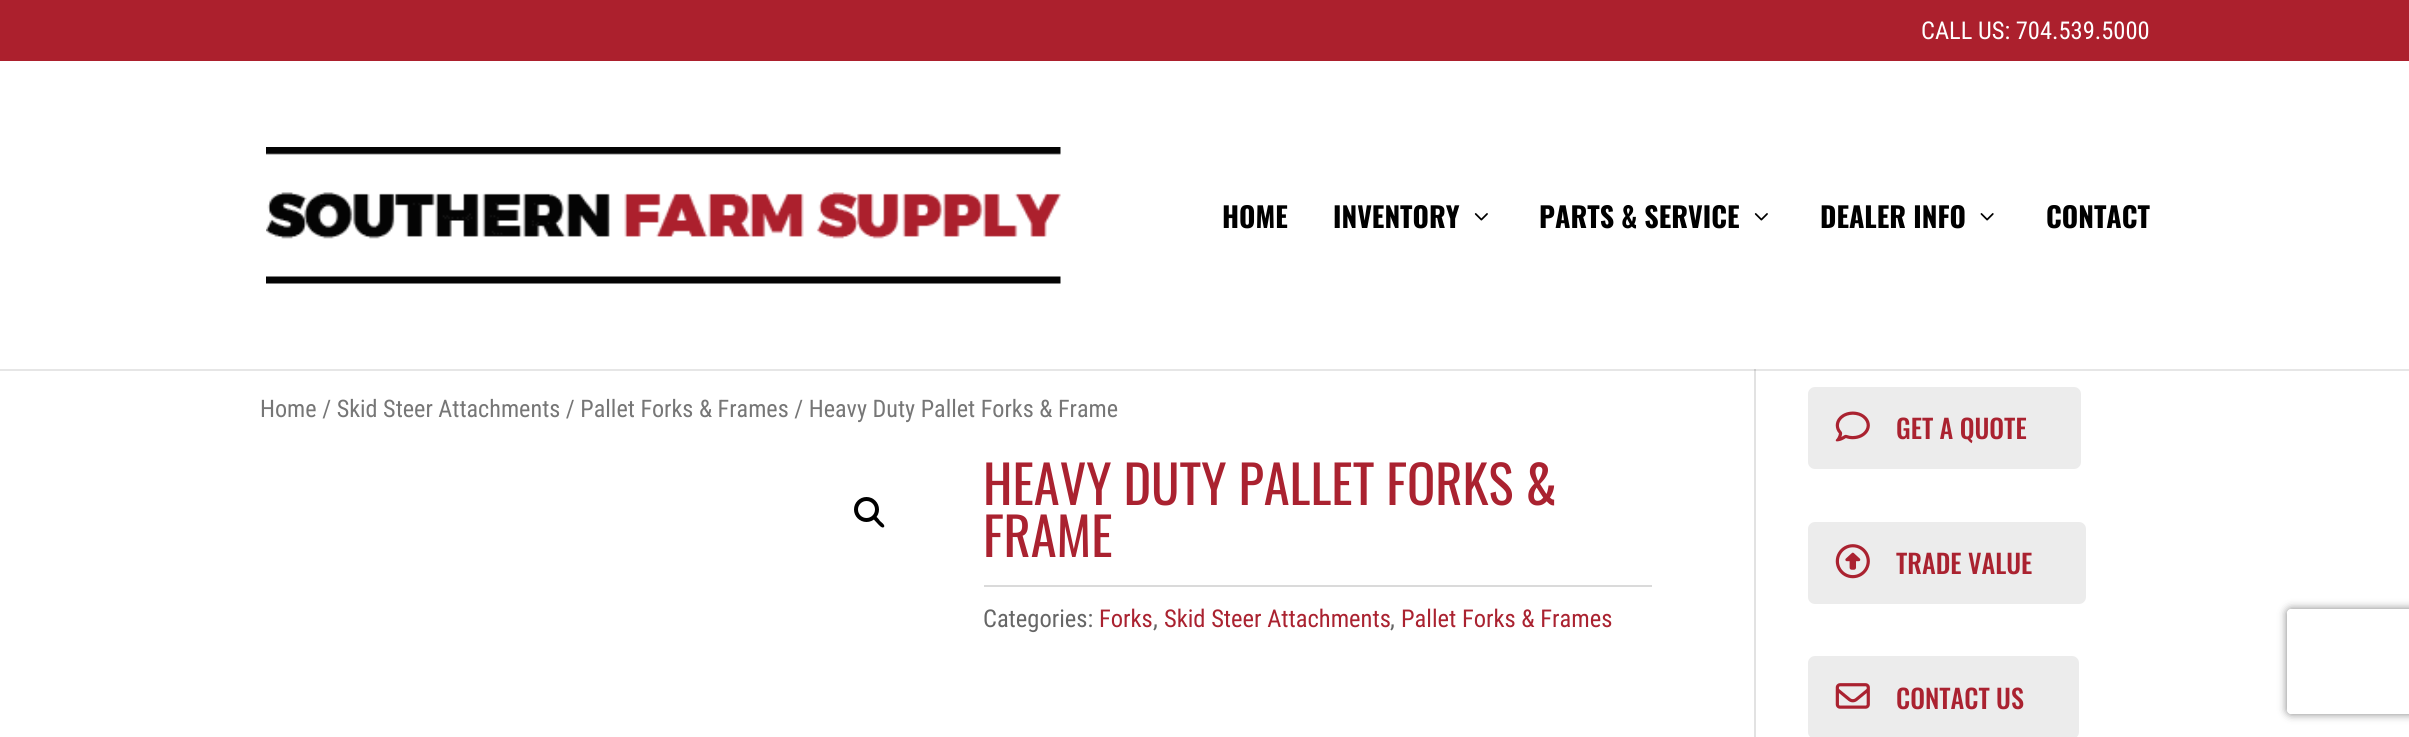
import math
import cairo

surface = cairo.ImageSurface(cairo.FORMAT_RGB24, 2409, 737)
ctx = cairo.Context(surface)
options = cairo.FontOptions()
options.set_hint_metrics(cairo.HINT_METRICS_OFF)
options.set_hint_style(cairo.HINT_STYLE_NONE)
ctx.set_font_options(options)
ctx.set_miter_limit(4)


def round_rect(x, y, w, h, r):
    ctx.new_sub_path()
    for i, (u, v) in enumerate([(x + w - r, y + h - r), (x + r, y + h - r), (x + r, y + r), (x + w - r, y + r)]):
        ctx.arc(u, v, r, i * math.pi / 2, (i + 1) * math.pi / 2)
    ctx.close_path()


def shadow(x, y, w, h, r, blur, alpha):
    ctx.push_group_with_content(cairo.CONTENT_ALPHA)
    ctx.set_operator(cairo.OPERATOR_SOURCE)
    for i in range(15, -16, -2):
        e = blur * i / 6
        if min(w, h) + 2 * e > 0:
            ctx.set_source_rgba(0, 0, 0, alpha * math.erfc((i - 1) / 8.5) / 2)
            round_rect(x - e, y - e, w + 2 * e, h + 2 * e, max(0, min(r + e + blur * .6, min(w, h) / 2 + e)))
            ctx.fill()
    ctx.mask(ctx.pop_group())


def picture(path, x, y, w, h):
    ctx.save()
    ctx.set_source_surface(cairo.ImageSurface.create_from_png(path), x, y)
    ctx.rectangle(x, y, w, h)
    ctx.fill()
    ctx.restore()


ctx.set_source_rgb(1, 1, 1)
ctx.paint()
ctx.set_source_rgb(0.675, 0.125, 0.176)
ctx.rectangle(0, 0, 2409, 61)
ctx.fill()
ctx.select_font_face("Roboto Condensed")
ctx.set_font_size(24.5)
ctx.set_source_rgb(1, 1, 1)
ctx.move_to(1921, 39)
ctx.show_text("CALL US: 704.539.5000")
ctx.set_source_rgb(0.886, 0.886, 0.886)
ctx.rectangle(1754, 369, 2, 368)
ctx.fill()
ctx.set_source_rgba(0, 0, 0, 0.1)
ctx.new_path()
ctx.move_to(0, 369)
ctx.line_to(0, 371)
ctx.line_to(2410, 371)
ctx.line_to(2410, 63)
ctx.line_to(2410, 369)
ctx.close_path()
ctx.fill()
picture("img1.png", 266, 147, 795, 137)
ctx.select_font_face("Oswald", cairo.FONT_SLANT_NORMAL, cairo.FONT_WEIGHT_BOLD)
ctx.set_font_size(28)
ctx.set_source_rgb(0, 0, 0)
ctx.move_to(1222, 228)
ctx.show_text("HOME")
ctx.move_to(1333, 228)
ctx.show_text("INVENTORY")
picture("img2.png", 1474, 213, 14, 8)
ctx.move_to(1539, 228)
ctx.show_text("PARTS & SERVICE")
picture("img2.png", 1754, 213, 14, 8)
ctx.move_to(1820, 228)
ctx.show_text("DEALER INFO")
picture("img3.png", 1980, 213, 14, 8)
ctx.move_to(2046, 228)
ctx.show_text("CONTACT")
ctx.select_font_face("Roboto Condensed")
ctx.set_font_size(24.15)
ctx.set_source_rgb(0.463, 0.463, 0.463)
ctx.move_to(260, 417)
ctx.show_text("Home / Skid Steer Attachments / Pallet Forks & Frames / Heavy Duty Pallet Forks & Frame")
ctx.new_path()
ctx.arc(866.5, 509.5, 10.5, 0, 2 * math.pi)
ctx.set_source_rgb(0, 0, 0)
ctx.set_line_width(4)
ctx.stroke()
ctx.new_path()
ctx.move_to(874, 517)
ctx.curve_to(876, 515, 879, 519.5, 880, 521)
ctx.curve_to(881, 522, 885.5, 525, 884, 527)
ctx.curve_to(882, 529, 878.5, 524.5, 877.5, 523.5)
ctx.curve_to(876.5, 522, 872, 519, 874, 517)
ctx.close_path()
ctx.fill()
ctx.select_font_face("Oswald")
ctx.set_font_size(52.5)
ctx.set_source_rgb(0.667, 0.133, 0.188)
ctx.move_to(983, 505)
ctx.show_text("HEAVY DUTY PALLET FORKS &")
ctx.move_to(983, 557)
ctx.show_text("FRAME")
ctx.set_source_rgb(0.855, 0.855, 0.855)
ctx.rectangle(984, 585, 668, 2)
ctx.fill()
ctx.select_font_face("Roboto Condensed")
ctx.set_font_size(24.5)
ctx.set_source_rgb(0.4, 0.4, 0.4)
ctx.move_to(983, 627)
ctx.show_text("Categories:")
ctx.set_source_rgb(0.667, 0.133, 0.188)
ctx.move_to(1099, 627)
ctx.show_text("Forks")
ctx.set_source_rgb(0.4, 0.4, 0.4)
ctx.move_to(1153, 627)
ctx.show_text(",")
ctx.set_source_rgb(0.667, 0.133, 0.188)
ctx.move_to(1164, 627)
ctx.show_text("Skid Steer Attachments")
ctx.set_source_rgb(0.4, 0.4, 0.4)
ctx.move_to(1390, 627)
ctx.show_text(",")
ctx.set_source_rgb(0.667, 0.133, 0.188)
ctx.move_to(1401, 627)
ctx.show_text("Pallet Forks & Frames")
ctx.set_source_rgb(0.922, 0.922, 0.922)
round_rect(1809, 388, 271, 80, 6)
ctx.fill_preserve()
ctx.set_line_width(2)
ctx.stroke()
picture("img4.png", 1835, 411, 35, 31)
ctx.select_font_face("Oswald Medium")
ctx.set_font_size(26.25)
ctx.set_source_rgb(0.667, 0.133, 0.188)
ctx.move_to(1896, 439)
ctx.show_text("GET A QUOTE")
ctx.set_source_rgb(0.922, 0.922, 0.922)
round_rect(1809, 523, 276, 80, 6)
ctx.fill_preserve()
ctx.stroke()
picture("img5.png", 1835, 544, 35, 35)
ctx.set_source_rgb(0.667, 0.133, 0.188)
ctx.move_to(1896, 574)
ctx.show_text("TRADE VALUE")
ctx.set_source_rgb(0.922, 0.922, 0.922)
round_rect(1809, 657, 269, 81, 6)
ctx.fill_preserve()
ctx.stroke()
picture("img6.png", 1835, 683, 35, 26)
ctx.set_source_rgb(0.667, 0.133, 0.188)
ctx.move_to(1896, 709)
ctx.show_text("CONTACT US")
ctx.save()
ctx.set_fill_rule(cairo.FILL_RULE_EVEN_ODD)
ctx.new_path()
ctx.move_to(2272, 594)
ctx.line_to(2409, 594)
ctx.line_to(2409, 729)
ctx.line_to(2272, 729)
ctx.close_path()
ctx.move_to(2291, 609)
ctx.line_to(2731, 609)
ctx.curve_to(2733, 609, 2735, 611, 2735, 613)
ctx.line_to(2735, 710)
ctx.curve_to(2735, 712, 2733, 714, 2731, 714)
ctx.line_to(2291, 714)
ctx.curve_to(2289, 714, 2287, 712, 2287, 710)
ctx.line_to(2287, 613)
ctx.curve_to(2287, 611, 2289, 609, 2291, 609)
ctx.close_path()
ctx.clip()
ctx.set_source_rgb(0.502, 0.502, 0.502)
shadow(2287, 609, 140, 105, 4, 4.5, 1)
ctx.restore()
surface.write_to_png("page.png")
